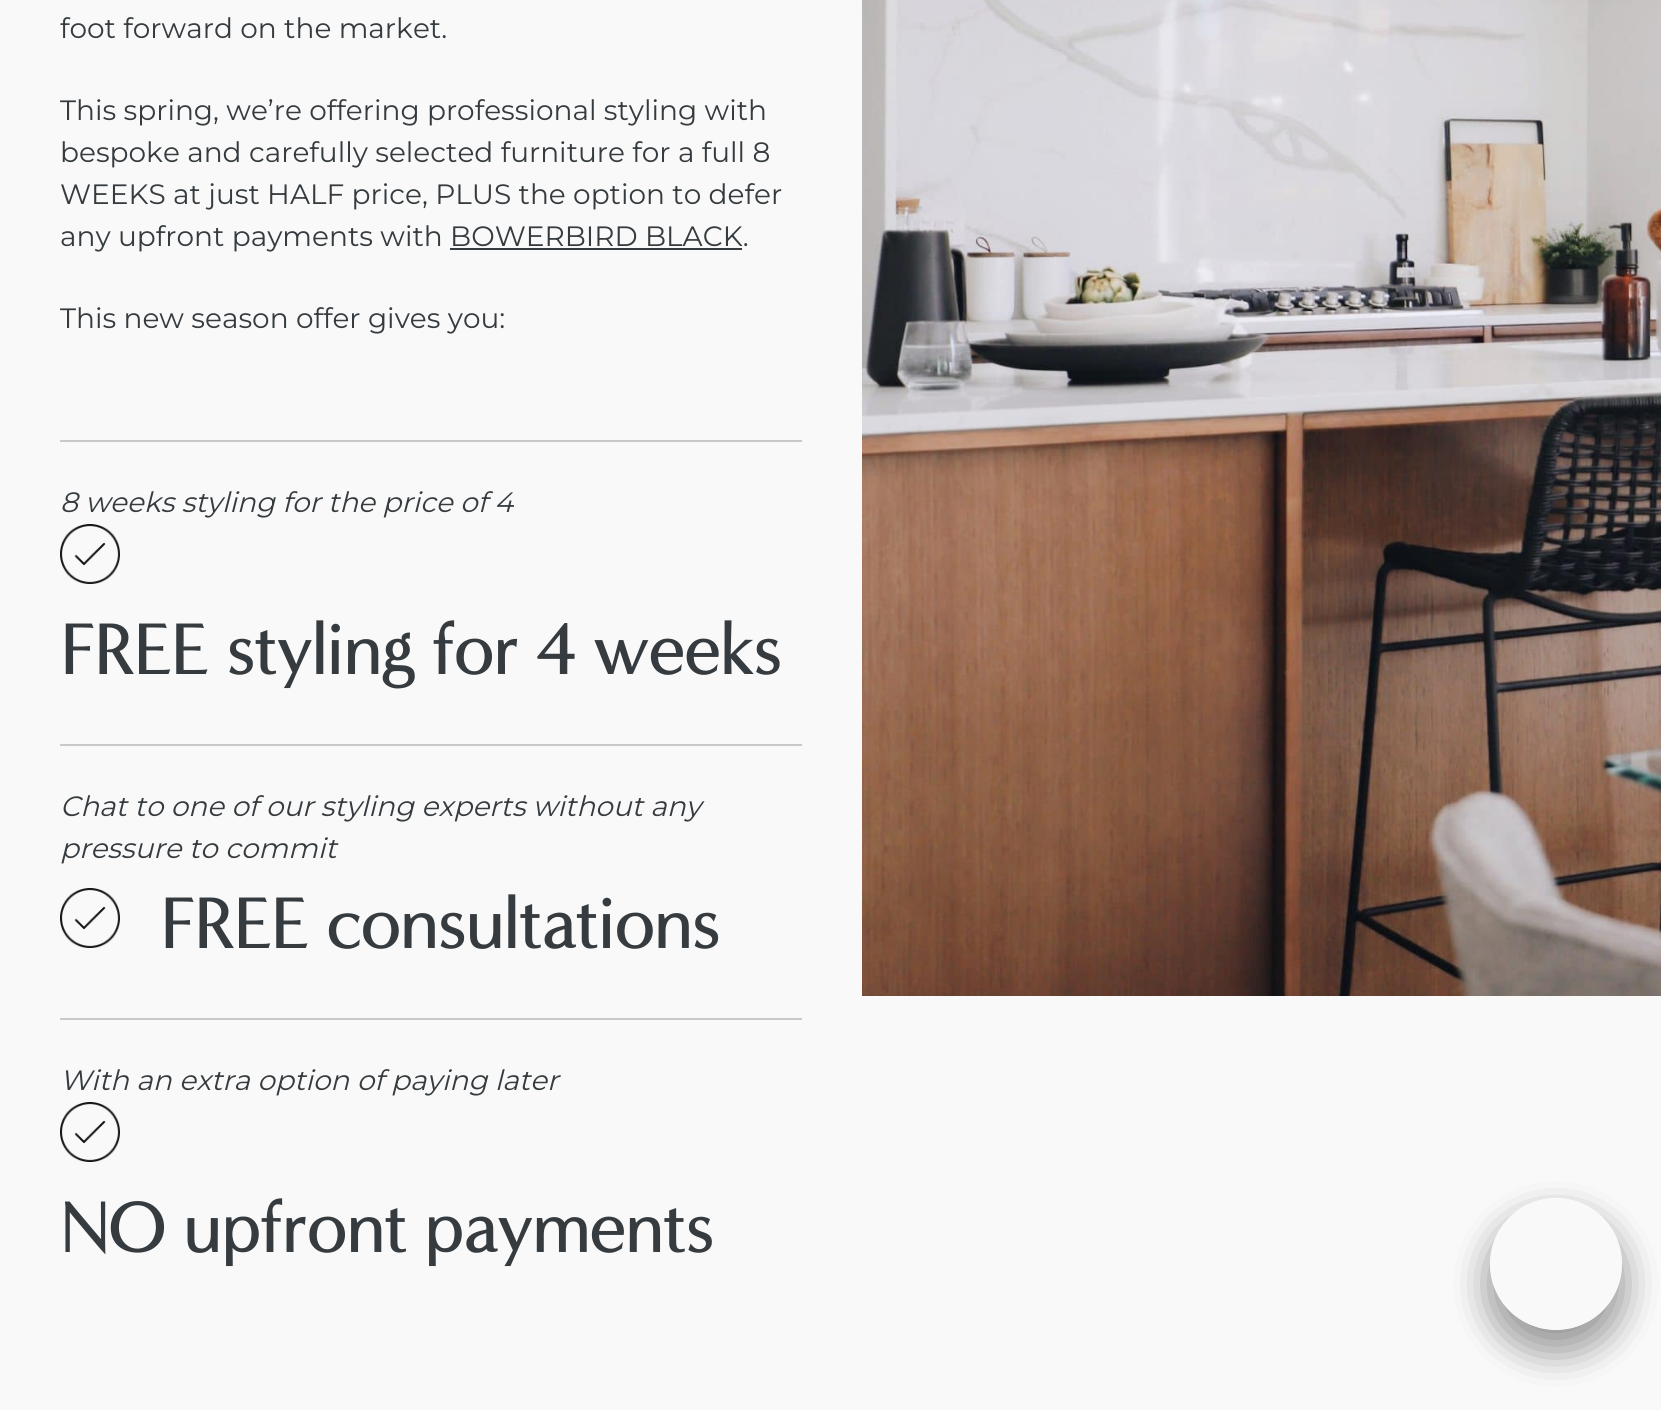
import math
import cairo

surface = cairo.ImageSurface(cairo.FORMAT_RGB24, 1661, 1410)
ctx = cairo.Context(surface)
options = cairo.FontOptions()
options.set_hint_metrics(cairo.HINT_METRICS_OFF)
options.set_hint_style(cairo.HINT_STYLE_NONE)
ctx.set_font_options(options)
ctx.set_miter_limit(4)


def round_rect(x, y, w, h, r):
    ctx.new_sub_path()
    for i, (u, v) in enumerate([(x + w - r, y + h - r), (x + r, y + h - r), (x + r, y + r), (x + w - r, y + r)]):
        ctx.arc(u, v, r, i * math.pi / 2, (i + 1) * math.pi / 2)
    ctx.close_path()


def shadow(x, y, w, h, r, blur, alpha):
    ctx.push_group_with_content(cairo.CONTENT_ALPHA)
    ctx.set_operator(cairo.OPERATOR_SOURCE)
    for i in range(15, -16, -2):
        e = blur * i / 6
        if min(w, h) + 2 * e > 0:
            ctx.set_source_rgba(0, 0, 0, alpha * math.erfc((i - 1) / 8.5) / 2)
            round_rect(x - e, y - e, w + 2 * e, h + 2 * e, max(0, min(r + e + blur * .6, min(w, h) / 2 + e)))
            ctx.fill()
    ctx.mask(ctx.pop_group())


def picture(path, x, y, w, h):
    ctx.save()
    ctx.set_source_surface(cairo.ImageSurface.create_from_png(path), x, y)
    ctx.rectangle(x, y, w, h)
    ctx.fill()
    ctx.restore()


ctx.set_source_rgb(0.976, 0.976, 0.976)
ctx.paint()
ctx.select_font_face("Montserrat")
ctx.set_font_size(28)
ctx.set_source_rgb(0.208, 0.231, 0.247)
ctx.move_to(60, 38)
ctx.show_text("foot forward on the market.")
ctx.move_to(60, 120)
ctx.show_text("This spring, we’re offering professional styling with")
ctx.move_to(60, 162)
ctx.show_text("bespoke and carefully selected furniture for a full 8")
ctx.move_to(60, 204)
ctx.show_text("WEEKS at just HALF price, PLUS the option to defer")
ctx.move_to(60, 246)
ctx.show_text("any upfront payments with BOWERBIRD BLACK.")
ctx.rectangle(450, 248, 292, 2)
ctx.fill()
ctx.move_to(60, 328)
ctx.show_text("This new season offer gives you:")
ctx.set_source_rgb(0.788, 0.788, 0.788)
ctx.rectangle(60, 440, 742, 2)
ctx.fill()
ctx.select_font_face("Montserrat", cairo.FONT_SLANT_ITALIC)
ctx.set_source_rgb(0.208, 0.231, 0.247)
ctx.move_to(60, 512)
ctx.show_text("8 weeks styling for the price of 4")
picture("img1.png", 60, 524, 60, 60)
ctx.select_font_face("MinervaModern", cairo.FONT_SLANT_NORMAL, cairo.FONT_WEIGHT_BOLD)
ctx.set_font_size(72)
ctx.move_to(60, 674)
ctx.show_text("FREE styling for 4 weeks")
ctx.set_source_rgb(0.788, 0.788, 0.788)
ctx.rectangle(60, 744, 742, 2)
ctx.fill()
ctx.select_font_face("Montserrat", cairo.FONT_SLANT_ITALIC)
ctx.set_font_size(28)
ctx.set_source_rgb(0.208, 0.231, 0.247)
ctx.move_to(60, 816)
ctx.show_text("Chat to one of our styling experts without any")
ctx.move_to(60, 858)
ctx.show_text("pressure to commit")
picture("img2.png", 60, 888, 60, 60)
ctx.select_font_face("MinervaModern", cairo.FONT_SLANT_NORMAL, cairo.FONT_WEIGHT_BOLD)
ctx.set_font_size(72)
ctx.move_to(160, 948)
ctx.show_text("FREE consultations")
ctx.set_source_rgb(0.788, 0.788, 0.788)
ctx.rectangle(60, 1018, 742, 2)
ctx.fill()
ctx.select_font_face("Montserrat", cairo.FONT_SLANT_ITALIC)
ctx.set_font_size(28)
ctx.set_source_rgb(0.208, 0.231, 0.247)
ctx.move_to(60, 1090)
ctx.show_text("With an extra option of paying later")
picture("img2.png", 60, 1102, 60, 60)
ctx.select_font_face("MinervaModern", cairo.FONT_SLANT_NORMAL, cairo.FONT_WEIGHT_BOLD)
ctx.set_font_size(72)
ctx.move_to(60, 1252)
ctx.show_text("NO upfront payments")
picture("img3.png", 862, 0, 799, 996)
ctx.save()
ctx.set_fill_rule(cairo.FILL_RULE_EVEN_ODD)
ctx.new_path()
ctx.move_to(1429, 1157)
ctx.line_to(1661, 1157)
ctx.line_to(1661, 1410)
ctx.line_to(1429, 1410)
ctx.close_path()
ctx.move_to(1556, 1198)
ctx.curve_to(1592.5, 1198, 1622, 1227.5, 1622, 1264)
ctx.curve_to(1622, 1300.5, 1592.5, 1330, 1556, 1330)
ctx.curve_to(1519.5, 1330, 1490, 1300.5, 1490, 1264)
ctx.curve_to(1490, 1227.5, 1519.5, 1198, 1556, 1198)
ctx.close_path()
ctx.clip()
ctx.set_source_rgb(0, 0, 0)
shadow(1490, 1218, 132, 132, 66, 20, 0.16)
shadow(1490, 1218, 132, 132, 66, 20, 0.16)
shadow(1490, 1218, 132, 132, 66, 20, 0.16)
ctx.restore()
surface.write_to_png("page.png")
